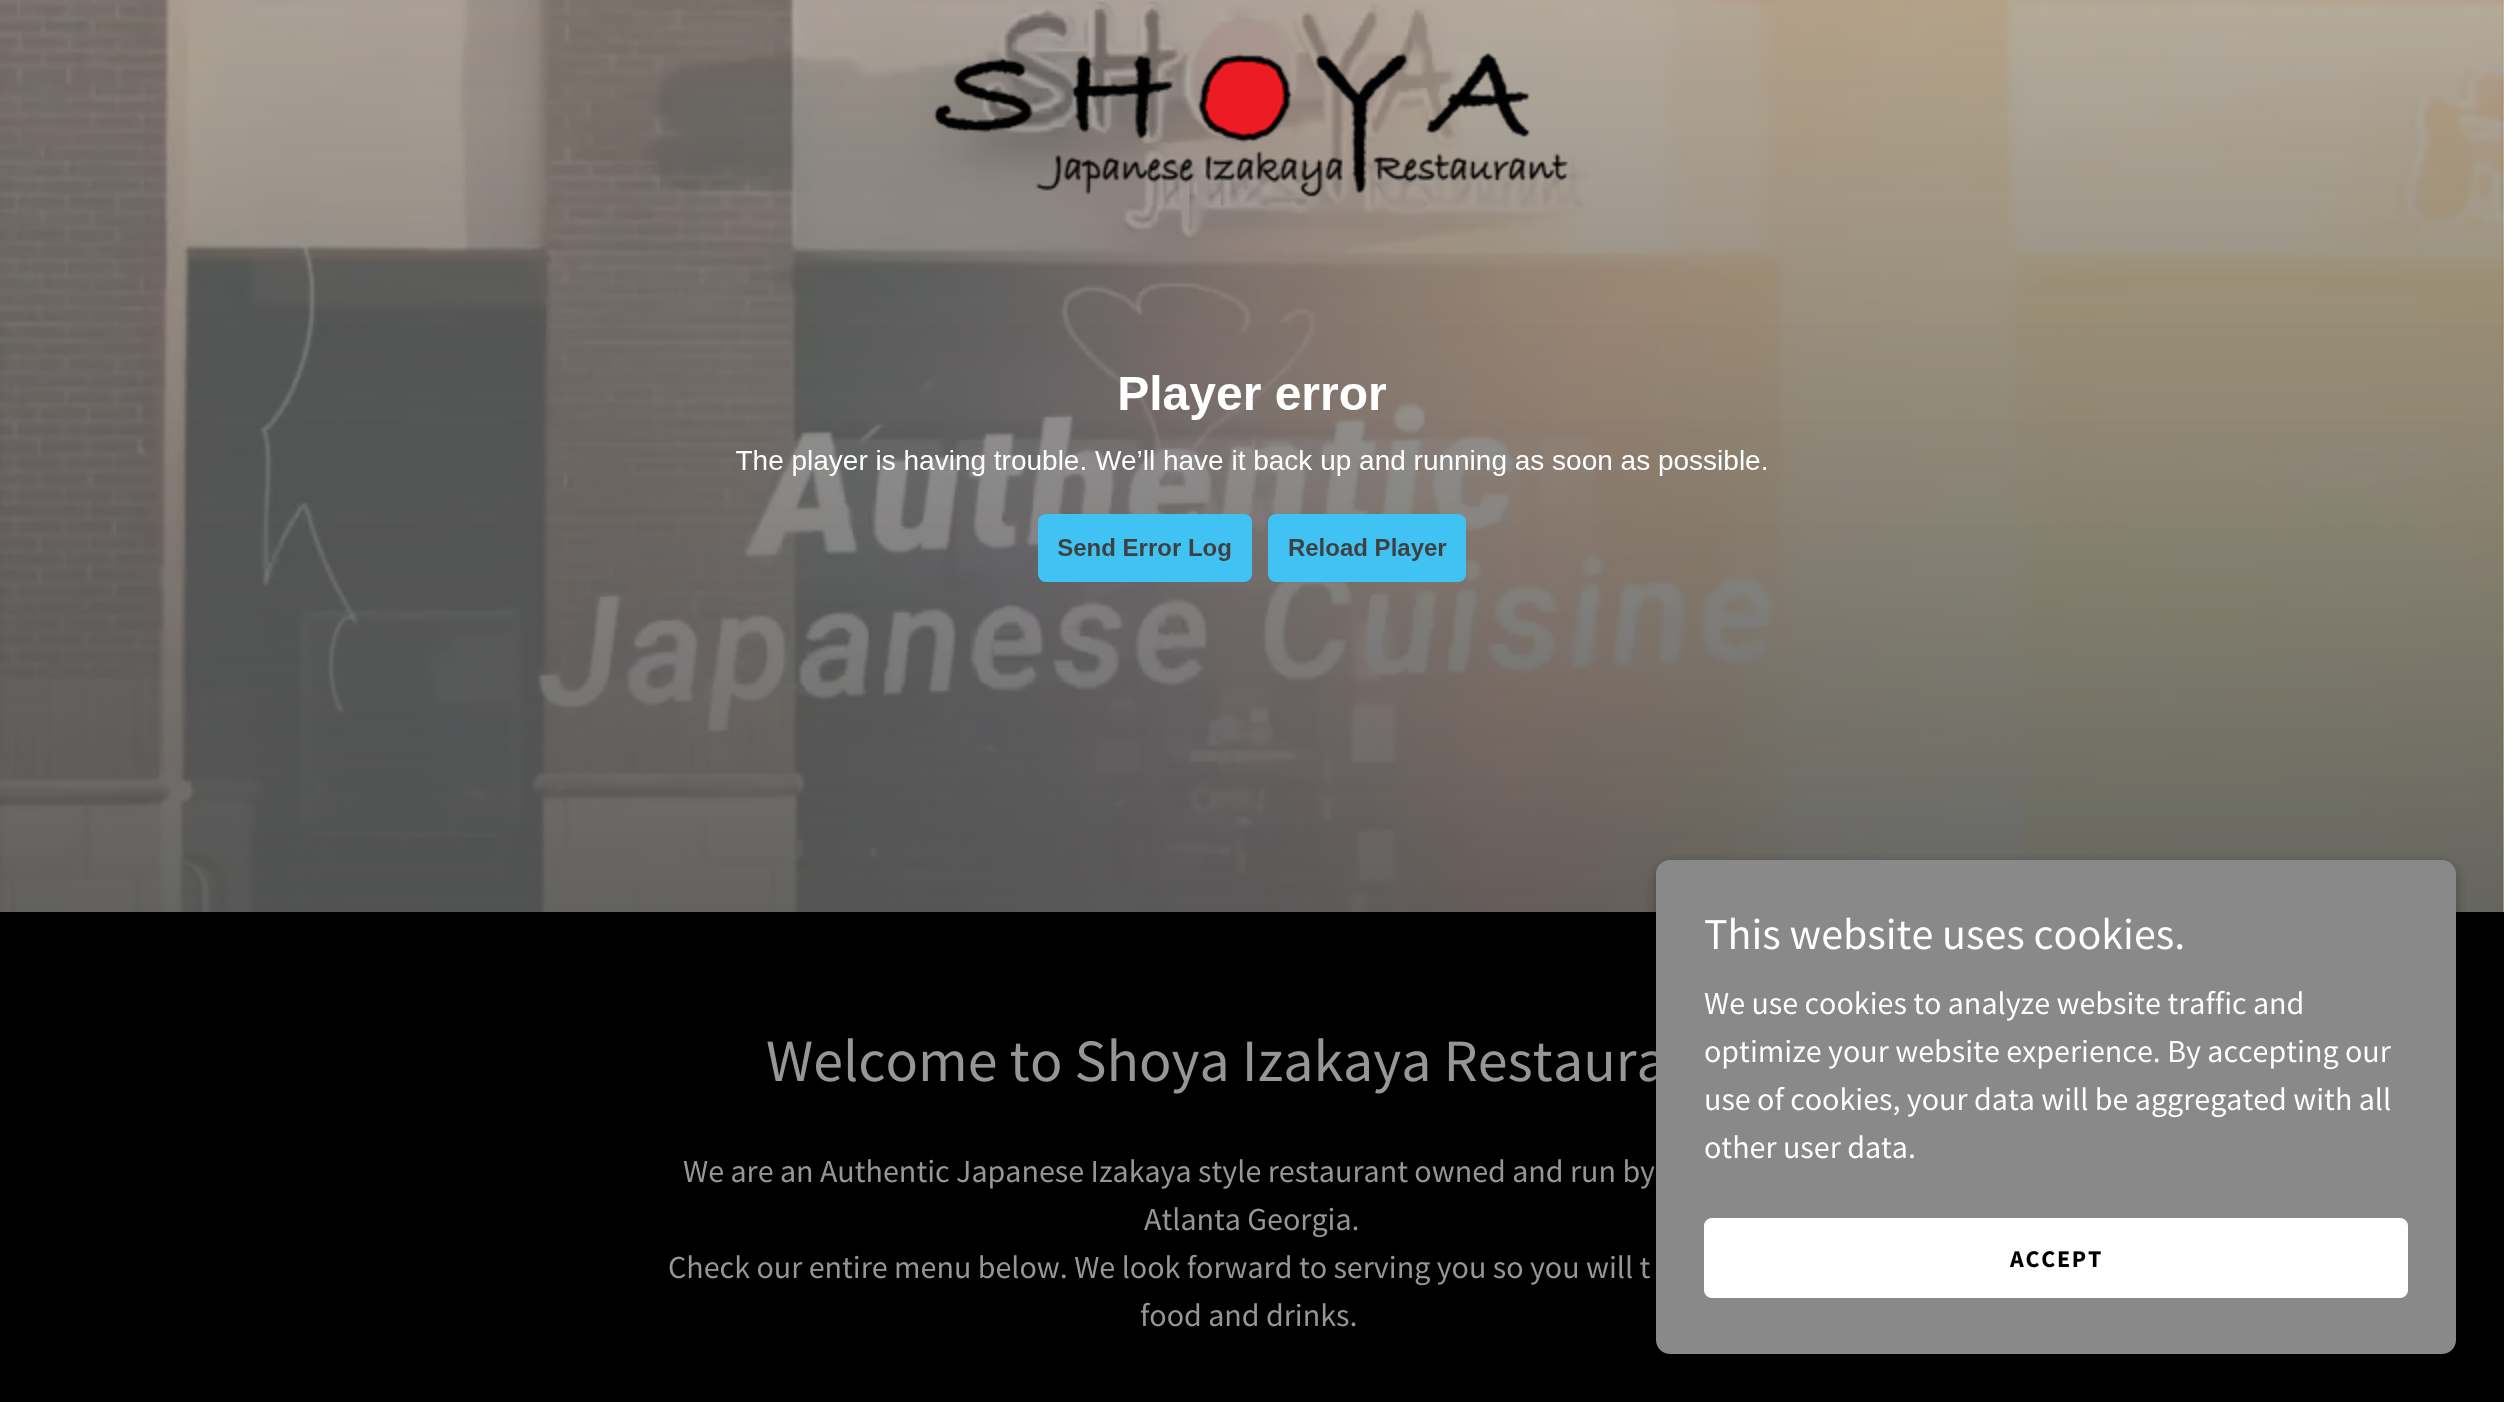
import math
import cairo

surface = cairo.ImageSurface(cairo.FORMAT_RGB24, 2504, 1402)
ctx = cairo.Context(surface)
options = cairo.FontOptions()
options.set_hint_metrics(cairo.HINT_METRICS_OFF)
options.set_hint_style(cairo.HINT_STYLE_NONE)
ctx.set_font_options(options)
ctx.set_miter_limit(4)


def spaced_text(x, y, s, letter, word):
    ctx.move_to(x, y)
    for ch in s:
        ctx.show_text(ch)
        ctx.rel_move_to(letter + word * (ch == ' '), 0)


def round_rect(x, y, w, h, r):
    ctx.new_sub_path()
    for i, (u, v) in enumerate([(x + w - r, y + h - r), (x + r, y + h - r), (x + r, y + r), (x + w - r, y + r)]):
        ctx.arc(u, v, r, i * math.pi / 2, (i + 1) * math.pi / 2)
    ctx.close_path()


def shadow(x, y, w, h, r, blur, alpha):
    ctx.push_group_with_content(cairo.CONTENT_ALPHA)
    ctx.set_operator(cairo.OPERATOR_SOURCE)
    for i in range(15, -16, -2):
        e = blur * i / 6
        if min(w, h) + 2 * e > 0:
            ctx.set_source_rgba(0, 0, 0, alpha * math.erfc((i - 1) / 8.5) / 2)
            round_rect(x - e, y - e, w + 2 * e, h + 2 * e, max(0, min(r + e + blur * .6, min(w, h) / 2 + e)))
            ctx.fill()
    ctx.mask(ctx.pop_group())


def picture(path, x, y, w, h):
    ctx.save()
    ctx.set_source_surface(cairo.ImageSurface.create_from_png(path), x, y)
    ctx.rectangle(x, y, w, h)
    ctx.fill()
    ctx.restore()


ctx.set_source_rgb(0, 0, 0)
ctx.paint()
picture("img1.png", 0, 0, 2504, 912)
picture("img2.png", 0, 0, 2504, 912)
picture("img3.png", 933, 52, 636, 145)
ctx.select_font_face("Source Sans Pro")
ctx.set_font_size(60)
ctx.set_source_rgb(0.588, 0.588, 0.588)
ctx.move_to(766, 1081)
ctx.show_text("Welcome to Shoya Izakaya Restaura")
ctx.set_font_size(32)
ctx.move_to(683, 1182)
ctx.show_text("We are an Authentic Japanese Izakaya style restaurant owned and run by")
ctx.move_to(1144, 1230)
ctx.show_text("Atlanta Georgia.")
ctx.move_to(668, 1278)
ctx.show_text("Check our entire menu below. We look forward to serving you so you will t")
ctx.move_to(1140, 1326)
ctx.show_text("food and drinks.")
ctx.set_source_rgb(0, 0, 0)
shadow(1656, 864, 800, 494, 14, 6, 0.3)
ctx.set_source_rgb(0.537, 0.537, 0.537)
round_rect(1656, 860, 800, 494, 14)
ctx.fill()
ctx.set_font_size(44)
ctx.set_source_rgb(1, 1, 1)
ctx.move_to(1704, 949)
ctx.show_text("This website uses cookies.")
ctx.set_font_size(32)
ctx.move_to(1704, 1014)
ctx.show_text("We use cookies to analyze website traffic and")
ctx.move_to(1704, 1062)
ctx.show_text("optimize your website experience. By accepting our")
ctx.move_to(1704, 1110)
ctx.show_text("use of cookies, your data will be aggregated with all")
ctx.move_to(1704, 1158)
ctx.show_text("other user data.")
round_rect(1704, 1218, 704, 80, 8)
ctx.fill()
ctx.select_font_face("Source Sans Pro", cairo.FONT_SLANT_NORMAL, cairo.FONT_WEIGHT_BOLD)
ctx.set_font_size(24)
ctx.set_source_rgb(0, 0, 0)
spaced_text(2010, 1267, "ACCEPT", 1.75, 0)
surface.write_to_png("page.png")
